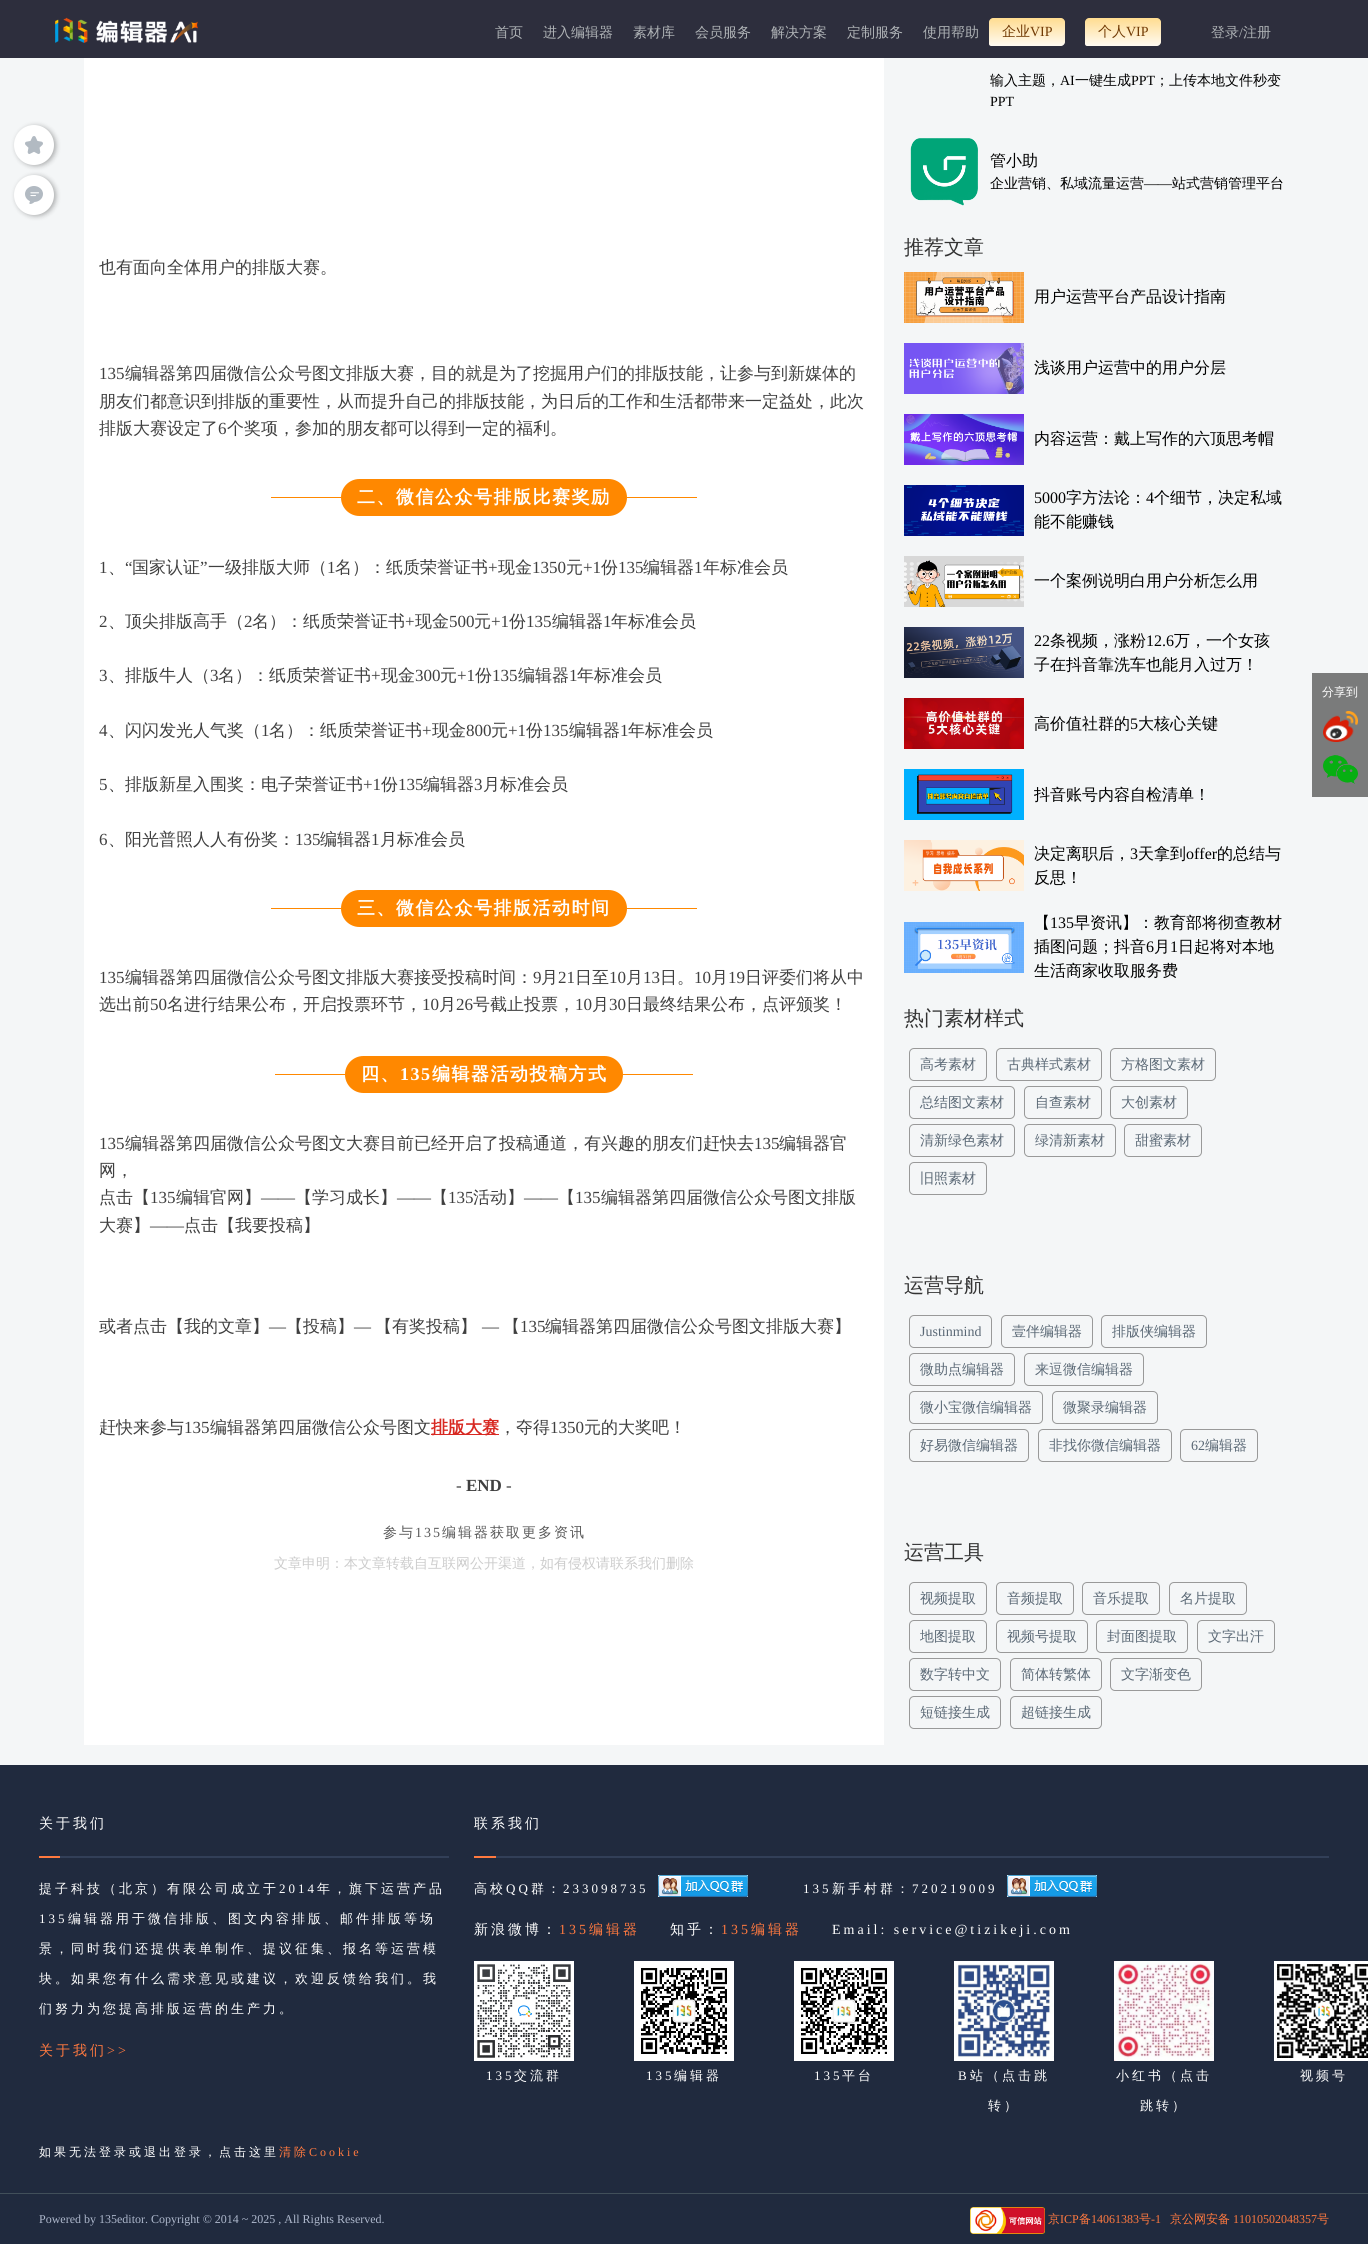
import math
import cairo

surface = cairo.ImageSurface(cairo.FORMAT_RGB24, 1368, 2244)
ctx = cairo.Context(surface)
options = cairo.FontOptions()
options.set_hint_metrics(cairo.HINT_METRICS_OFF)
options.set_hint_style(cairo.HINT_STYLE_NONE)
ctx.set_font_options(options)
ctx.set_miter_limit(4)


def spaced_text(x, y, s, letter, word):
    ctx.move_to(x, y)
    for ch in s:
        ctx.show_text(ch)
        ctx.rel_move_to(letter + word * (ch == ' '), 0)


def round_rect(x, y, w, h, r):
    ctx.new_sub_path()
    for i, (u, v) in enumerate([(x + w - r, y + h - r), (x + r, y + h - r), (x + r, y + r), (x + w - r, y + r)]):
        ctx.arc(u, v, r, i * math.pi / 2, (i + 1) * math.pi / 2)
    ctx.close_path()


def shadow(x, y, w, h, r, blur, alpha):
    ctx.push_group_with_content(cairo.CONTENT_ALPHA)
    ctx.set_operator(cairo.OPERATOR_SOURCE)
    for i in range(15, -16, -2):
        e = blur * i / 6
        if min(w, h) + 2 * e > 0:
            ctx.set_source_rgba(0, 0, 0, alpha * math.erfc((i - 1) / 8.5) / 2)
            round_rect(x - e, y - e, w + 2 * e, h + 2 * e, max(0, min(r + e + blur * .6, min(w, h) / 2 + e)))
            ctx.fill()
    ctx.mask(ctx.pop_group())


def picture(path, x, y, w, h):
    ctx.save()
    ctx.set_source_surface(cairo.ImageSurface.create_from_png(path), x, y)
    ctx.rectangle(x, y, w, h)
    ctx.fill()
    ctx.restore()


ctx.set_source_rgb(0.957, 0.961, 0.965)
ctx.paint()
ctx.set_source_rgb(0.176, 0.18, 0.239)
ctx.rectangle(0, 0, 1368, 58)
ctx.fill()
picture("img1.png", 55, 17, 143, 26)
ctx.select_font_face("WenQuanYi Zen Hei Medium")
ctx.set_font_size(14)
ctx.set_source_rgb(0.686, 0.702, 0.714)
ctx.move_to(495, 37)
ctx.show_text("首页")
ctx.move_to(543, 37)
ctx.show_text("进入编辑器")
ctx.move_to(633, 37)
ctx.show_text("素材库")
ctx.move_to(695, 37)
ctx.show_text("会员服务")
ctx.move_to(771, 37)
ctx.show_text("解决方案")
ctx.move_to(847, 37)
ctx.show_text("定制服务")
ctx.move_to(923, 37)
ctx.show_text("使用帮助")
gradient = cairo.LinearGradient(1027, 46, 1027, 18)
gradient.add_color_stop_rgba(0, 1, 0.984, 0.949, 1)
gradient.add_color_stop_rgba(1, 1, 0.863, 0.565, 1)
ctx.set_source(gradient)
ctx.new_path()
ctx.move_to(993, 18)
ctx.line_to(1061, 18)
ctx.curve_to(1063, 18, 1065, 20, 1065, 22)
ctx.line_to(1065, 42)
ctx.curve_to(1065, 44, 1063, 46, 1061, 46)
ctx.line_to(991, 46)
ctx.curve_to(990, 46, 989, 45, 989, 44)
ctx.line_to(989, 22)
ctx.curve_to(989, 20, 991, 18, 993, 18)
ctx.close_path()
ctx.fill()
ctx.set_source_rgb(0.447, 0.231, 0.02)
ctx.move_to(1002, 36)
ctx.show_text("企业")
ctx.select_font_face("Liberation Serif")
ctx.move_to(1030, 36)
ctx.show_text("VIP")
gradient = cairo.LinearGradient(1123, 46, 1123, 18)
gradient.add_color_stop_rgba(0, 1, 0.984, 0.949, 1)
gradient.add_color_stop_rgba(1, 1, 0.863, 0.565, 1)
ctx.set_source(gradient)
ctx.new_path()
ctx.move_to(1089, 18)
ctx.line_to(1157, 18)
ctx.curve_to(1159, 18, 1161, 20, 1161, 22)
ctx.line_to(1161, 42)
ctx.curve_to(1161, 44, 1159, 46, 1157, 46)
ctx.line_to(1087, 46)
ctx.curve_to(1086, 46, 1085, 45, 1085, 44)
ctx.line_to(1085, 22)
ctx.curve_to(1085, 20, 1087, 18, 1089, 18)
ctx.close_path()
ctx.fill()
ctx.select_font_face("WenQuanYi Zen Hei Medium")
ctx.set_source_rgb(0.447, 0.231, 0.02)
ctx.move_to(1098, 36)
ctx.show_text("个人")
ctx.select_font_face("Liberation Serif")
ctx.move_to(1126, 36)
ctx.show_text("VIP")
ctx.select_font_face("WenQuanYi Zen Hei Medium")
ctx.set_source_rgb(0.686, 0.702, 0.714)
ctx.move_to(1211, 37)
ctx.show_text("登录")
ctx.select_font_face("Liberation Serif")
ctx.move_to(1239, 37)
ctx.show_text("/")
ctx.select_font_face("WenQuanYi Zen Hei Medium")
ctx.move_to(1243, 37)
ctx.show_text("注册")
ctx.set_source_rgb(0, 0, 0)
shadow(16, 126, 40, 40, 20, 2.5, 0.3)
ctx.set_source_rgb(1, 1, 1)
ctx.arc(34, 145, 20, 0, 2 * math.pi)
ctx.fill()
picture("img2.png", 25, 136, 18, 18)
ctx.set_source_rgb(0, 0, 0)
shadow(16, 176, 40, 40, 20, 2.5, 0.3)
ctx.set_source_rgb(1, 1, 1)
ctx.arc(34, 195, 20, 0, 2 * math.pi)
ctx.fill()
picture("img3.png", 25, 186, 18, 18)
ctx.rectangle(84, 58, 800, 1687)
ctx.fill()
ctx.set_font_size(17)
ctx.set_source_rgb(0.247, 0.247, 0.247)
ctx.move_to(99, 273)
ctx.show_text("也有面向全体用户的排版大赛。")
ctx.select_font_face("Liberation Serif")
ctx.move_to(99, 379)
ctx.show_text("135")
ctx.select_font_face("WenQuanYi Zen Hei Medium")
ctx.move_to(125, 379)
ctx.show_text("编辑器第四届微信公众号图文排版大赛，目的就是为了挖掘用户们的排版技能，让参与到新媒体的")
ctx.move_to(99, 407)
ctx.show_text("朋友们都意识到排版的重要性，从而提升自己的排版技能，为日后的工作和生活都带来一定益处，此次")
ctx.move_to(99, 434)
ctx.show_text("排版大赛设定了")
ctx.select_font_face("Liberation Serif")
ctx.move_to(218, 434)
ctx.show_text("6")
ctx.select_font_face("WenQuanYi Zen Hei Medium")
ctx.move_to(227, 434)
ctx.show_text("个奖项，参加的朋友都可以得到一定的福利。")
ctx.set_source_rgb(1, 0.533, 0)
ctx.rectangle(271, 497, 70, 1)
ctx.fill()
round_rect(341, 479, 286, 37, 18.5)
ctx.fill()
ctx.select_font_face("WenQuanYi Zen Hei", cairo.FONT_SLANT_NORMAL, cairo.FONT_WEIGHT_BOLD)
ctx.set_font_size(18)
ctx.set_source_rgb(1, 1, 1)
spaced_text(357, 503, "二、微信公众号排版比赛奖励", 1.5, 0)
ctx.set_source_rgb(1, 0.533, 0)
ctx.rectangle(627, 497, 70, 1)
ctx.fill()
ctx.select_font_face("Liberation Serif")
ctx.set_font_size(17)
ctx.set_source_rgb(0.247, 0.247, 0.247)
ctx.move_to(99, 573)
ctx.show_text("1")
ctx.move_to(125, 573)
ctx.show_text("“")
ctx.select_font_face("WenQuanYi Zen Hei Medium")
ctx.move_to(132, 573)
ctx.show_text("国家认证")
ctx.select_font_face("Liberation Serif")
ctx.move_to(200, 573)
ctx.show_text("”")
ctx.select_font_face("WenQuanYi Zen Hei Medium")
ctx.move_to(208, 573)
ctx.show_text("一级排版大师（")
ctx.select_font_face("Liberation Serif")
ctx.move_to(327, 573)
ctx.show_text("1")
ctx.select_font_face("WenQuanYi Zen Hei Medium")
ctx.move_to(335, 573)
ctx.show_text("名）：纸质荣誉证书")
ctx.select_font_face("Liberation Serif")
ctx.move_to(488, 573)
ctx.show_text("+")
ctx.select_font_face("WenQuanYi Zen Hei Medium")
ctx.move_to(498, 573)
ctx.show_text("现金")
ctx.select_font_face("Liberation Serif")
ctx.move_to(532, 573)
ctx.show_text("1350")
ctx.select_font_face("WenQuanYi Zen Hei Medium")
ctx.move_to(566, 573)
ctx.show_text("元")
ctx.select_font_face("Liberation Serif")
ctx.move_to(583, 573)
ctx.show_text("+1")
ctx.select_font_face("WenQuanYi Zen Hei Medium")
ctx.move_to(601, 573)
ctx.show_text("份")
ctx.select_font_face("Liberation Serif")
ctx.move_to(618, 573)
ctx.show_text("135")
ctx.select_font_face("WenQuanYi Zen Hei Medium")
ctx.move_to(643, 573)
ctx.show_text("编辑器")
ctx.select_font_face("Liberation Serif")
ctx.move_to(694, 573)
ctx.show_text("1")
ctx.select_font_face("WenQuanYi Zen Hei Medium")
ctx.move_to(703, 573)
ctx.show_text("年标准会员")
ctx.move_to(108, 573)
ctx.show_text("、")
ctx.select_font_face("Liberation Serif")
ctx.move_to(99, 627)
ctx.show_text("2")
ctx.select_font_face("WenQuanYi Zen Hei Medium")
ctx.move_to(108, 627)
ctx.show_text("、顶尖排版高手（")
ctx.select_font_face("Liberation Serif")
ctx.move_to(244, 627)
ctx.show_text("2")
ctx.select_font_face("WenQuanYi Zen Hei Medium")
ctx.move_to(252, 627)
ctx.show_text("名）：纸质荣誉证书")
ctx.select_font_face("Liberation Serif")
ctx.move_to(405, 627)
ctx.show_text("+")
ctx.select_font_face("WenQuanYi Zen Hei Medium")
ctx.move_to(415, 627)
ctx.show_text("现金")
ctx.select_font_face("Liberation Serif")
ctx.move_to(449, 627)
ctx.show_text("500")
ctx.select_font_face("WenQuanYi Zen Hei Medium")
ctx.move_to(474, 627)
ctx.show_text("元")
ctx.select_font_face("Liberation Serif")
ctx.move_to(491, 627)
ctx.show_text("+1")
ctx.select_font_face("WenQuanYi Zen Hei Medium")
ctx.move_to(509, 627)
ctx.show_text("份")
ctx.select_font_face("Liberation Serif")
ctx.move_to(526, 627)
ctx.show_text("135")
ctx.select_font_face("WenQuanYi Zen Hei Medium")
ctx.move_to(552, 627)
ctx.show_text("编辑器")
ctx.select_font_face("Liberation Serif")
ctx.move_to(603, 627)
ctx.show_text("1")
ctx.select_font_face("WenQuanYi Zen Hei Medium")
ctx.move_to(611, 627)
ctx.show_text("年标准会员")
ctx.select_font_face("Liberation Serif")
ctx.move_to(99, 681)
ctx.show_text("3")
ctx.select_font_face("WenQuanYi Zen Hei Medium")
ctx.move_to(108, 681)
ctx.show_text("、排版牛人（")
ctx.select_font_face("Liberation Serif")
ctx.move_to(210, 681)
ctx.show_text("3")
ctx.select_font_face("WenQuanYi Zen Hei Medium")
ctx.move_to(218, 681)
ctx.show_text("名）：纸质荣誉证书")
ctx.select_font_face("Liberation Serif")
ctx.move_to(371, 681)
ctx.show_text("+")
ctx.select_font_face("WenQuanYi Zen Hei Medium")
ctx.move_to(381, 681)
ctx.show_text("现金")
ctx.select_font_face("Liberation Serif")
ctx.move_to(415, 681)
ctx.show_text("300")
ctx.select_font_face("WenQuanYi Zen Hei Medium")
ctx.move_to(440, 681)
ctx.show_text("元")
ctx.select_font_face("Liberation Serif")
ctx.move_to(457, 681)
ctx.show_text("+1")
ctx.select_font_face("WenQuanYi Zen Hei Medium")
ctx.move_to(475, 681)
ctx.show_text("份")
ctx.select_font_face("Liberation Serif")
ctx.move_to(492, 681)
ctx.show_text("135")
ctx.select_font_face("WenQuanYi Zen Hei Medium")
ctx.move_to(518, 681)
ctx.show_text("编辑器")
ctx.select_font_face("Liberation Serif")
ctx.move_to(569, 681)
ctx.show_text("1")
ctx.select_font_face("WenQuanYi Zen Hei Medium")
ctx.move_to(577, 681)
ctx.show_text("年标准会员")
ctx.select_font_face("Liberation Serif")
ctx.move_to(99, 736)
ctx.show_text("4")
ctx.select_font_face("WenQuanYi Zen Hei Medium")
ctx.move_to(108, 736)
ctx.show_text("、闪闪发光人气奖（")
ctx.select_font_face("Liberation Serif")
ctx.move_to(261, 736)
ctx.show_text("1")
ctx.select_font_face("WenQuanYi Zen Hei Medium")
ctx.move_to(269, 736)
ctx.show_text("名）：纸质荣誉证书")
ctx.select_font_face("Liberation Serif")
ctx.move_to(422, 736)
ctx.show_text("+")
ctx.select_font_face("WenQuanYi Zen Hei Medium")
ctx.move_to(432, 736)
ctx.show_text("现金")
ctx.select_font_face("Liberation Serif")
ctx.move_to(466, 736)
ctx.show_text("800")
ctx.select_font_face("WenQuanYi Zen Hei Medium")
ctx.move_to(491, 736)
ctx.show_text("元")
ctx.select_font_face("Liberation Serif")
ctx.move_to(508, 736)
ctx.show_text("+1")
ctx.select_font_face("WenQuanYi Zen Hei Medium")
ctx.move_to(526, 736)
ctx.show_text("份")
ctx.select_font_face("Liberation Serif")
ctx.move_to(543, 736)
ctx.show_text("135")
ctx.select_font_face("WenQuanYi Zen Hei Medium")
ctx.move_to(569, 736)
ctx.show_text("编辑器")
ctx.select_font_face("Liberation Serif")
ctx.move_to(620, 736)
ctx.show_text("1")
ctx.select_font_face("WenQuanYi Zen Hei Medium")
ctx.move_to(628, 736)
ctx.show_text("年标准会员")
ctx.select_font_face("Liberation Serif")
ctx.move_to(99, 790)
ctx.show_text("5")
ctx.select_font_face("WenQuanYi Zen Hei Medium")
ctx.move_to(108, 790)
ctx.show_text("、排版新星入围奖：电子荣誉证书")
ctx.select_font_face("Liberation Serif")
ctx.move_to(363, 790)
ctx.show_text("+1")
ctx.select_font_face("WenQuanYi Zen Hei Medium")
ctx.move_to(381, 790)
ctx.show_text("份")
ctx.select_font_face("Liberation Serif")
ctx.move_to(398, 790)
ctx.show_text("135")
ctx.select_font_face("WenQuanYi Zen Hei Medium")
ctx.move_to(423, 790)
ctx.show_text("编辑器")
ctx.select_font_face("Liberation Serif")
ctx.move_to(474, 790)
ctx.show_text("3")
ctx.select_font_face("WenQuanYi Zen Hei Medium")
ctx.move_to(483, 790)
ctx.show_text("月标准会员")
ctx.select_font_face("Liberation Serif")
ctx.move_to(99, 845)
ctx.show_text("6")
ctx.select_font_face("WenQuanYi Zen Hei Medium")
ctx.move_to(108, 845)
ctx.show_text("、阳光普照人人有份奖：")
ctx.select_font_face("Liberation Serif")
ctx.move_to(295, 845)
ctx.show_text("135")
ctx.select_font_face("WenQuanYi Zen Hei Medium")
ctx.move_to(320, 845)
ctx.show_text("编辑器")
ctx.select_font_face("Liberation Serif")
ctx.move_to(371, 845)
ctx.show_text("1")
ctx.select_font_face("WenQuanYi Zen Hei Medium")
ctx.move_to(380, 845)
ctx.show_text("月标准会员")
ctx.set_source_rgb(1, 0.533, 0)
ctx.rectangle(271, 908, 70, 1)
ctx.fill()
round_rect(341, 890, 286, 37, 18.5)
ctx.fill()
ctx.select_font_face("WenQuanYi Zen Hei", cairo.FONT_SLANT_NORMAL, cairo.FONT_WEIGHT_BOLD)
ctx.set_font_size(18)
ctx.set_source_rgb(1, 1, 1)
spaced_text(357, 914, "三、微信公众号排版活动时间", 1.5, 0)
ctx.set_source_rgb(1, 0.533, 0)
ctx.rectangle(627, 908, 70, 1)
ctx.fill()
ctx.select_font_face("Liberation Serif")
ctx.set_font_size(17)
ctx.set_source_rgb(0.247, 0.247, 0.247)
ctx.move_to(99, 983)
ctx.show_text("135")
ctx.select_font_face("WenQuanYi Zen Hei Medium")
ctx.move_to(125, 983)
ctx.show_text("编辑器第四届微信公众号图文排版大赛接受投稿时间：")
ctx.select_font_face("Liberation Serif")
ctx.move_to(533, 983)
ctx.show_text("9")
ctx.select_font_face("WenQuanYi Zen Hei Medium")
ctx.move_to(541, 983)
ctx.show_text("月")
ctx.select_font_face("Liberation Serif")
ctx.move_to(558, 983)
ctx.show_text("21")
ctx.select_font_face("WenQuanYi Zen Hei Medium")
ctx.move_to(575, 983)
ctx.show_text("日至")
ctx.select_font_face("Liberation Serif")
ctx.move_to(609, 983)
ctx.show_text("10")
ctx.select_font_face("WenQuanYi Zen Hei Medium")
ctx.move_to(626, 983)
ctx.show_text("月")
ctx.select_font_face("Liberation Serif")
ctx.move_to(643, 983)
ctx.show_text("13")
ctx.select_font_face("WenQuanYi Zen Hei Medium")
ctx.move_to(660, 983)
ctx.show_text("日。")
ctx.select_font_face("Liberation Serif")
ctx.move_to(694, 983)
ctx.show_text("10")
ctx.select_font_face("WenQuanYi Zen Hei Medium")
ctx.move_to(711, 983)
ctx.show_text("月")
ctx.select_font_face("Liberation Serif")
ctx.move_to(728, 983)
ctx.show_text("19")
ctx.select_font_face("WenQuanYi Zen Hei Medium")
ctx.move_to(745, 983)
ctx.show_text("日评委们将从中")
ctx.move_to(99, 1010)
ctx.show_text("选出前")
ctx.select_font_face("Liberation Serif")
ctx.move_to(150, 1010)
ctx.show_text("50")
ctx.select_font_face("WenQuanYi Zen Hei Medium")
ctx.move_to(167, 1010)
ctx.show_text("名进行结果公布，开启投票环节，")
ctx.select_font_face("Liberation Serif")
ctx.move_to(422, 1010)
ctx.show_text("10")
ctx.select_font_face("WenQuanYi Zen Hei Medium")
ctx.move_to(439, 1010)
ctx.show_text("月")
ctx.select_font_face("Liberation Serif")
ctx.move_to(456, 1010)
ctx.show_text("26")
ctx.select_font_face("WenQuanYi Zen Hei Medium")
ctx.move_to(473, 1010)
ctx.show_text("号截止投票，")
ctx.select_font_face("Liberation Serif")
ctx.move_to(575, 1010)
ctx.show_text("10")
ctx.select_font_face("WenQuanYi Zen Hei Medium")
ctx.move_to(592, 1010)
ctx.show_text("月")
ctx.select_font_face("Liberation Serif")
ctx.move_to(609, 1010)
ctx.show_text("30")
ctx.select_font_face("WenQuanYi Zen Hei Medium")
ctx.move_to(626, 1010)
ctx.show_text("日最终结果公布，点评颁奖！")
ctx.set_source_rgb(1, 0.533, 0)
ctx.rectangle(275, 1074, 70, 1)
ctx.fill()
round_rect(345, 1056, 278, 37, 18.5)
ctx.fill()
ctx.select_font_face("WenQuanYi Zen Hei", cairo.FONT_SLANT_NORMAL, cairo.FONT_WEIGHT_BOLD)
ctx.set_font_size(18)
ctx.set_source_rgb(1, 1, 1)
spaced_text(361, 1080, "四、", 1.5, 0)
ctx.select_font_face("Liberation Serif", cairo.FONT_SLANT_NORMAL, cairo.FONT_WEIGHT_BOLD)
spaced_text(400, 1080, "135", 1.5, 0)
ctx.select_font_face("WenQuanYi Zen Hei", cairo.FONT_SLANT_NORMAL, cairo.FONT_WEIGHT_BOLD)
spaced_text(432, 1080, "编辑器活动投稿方式", 1.5, 0)
ctx.set_source_rgb(1, 0.533, 0)
ctx.rectangle(623, 1074, 70, 1)
ctx.fill()
ctx.select_font_face("Liberation Serif")
ctx.set_font_size(17)
ctx.set_source_rgb(0.247, 0.247, 0.247)
ctx.move_to(99, 1149)
ctx.show_text("135")
ctx.select_font_face("WenQuanYi Zen Hei Medium")
ctx.move_to(125, 1149)
ctx.show_text("编辑器第四届微信公众号图文大赛目前已经开启了投稿通道，有兴趣的朋友们赶快去")
ctx.select_font_face("Liberation Serif")
ctx.move_to(754, 1149)
ctx.show_text("135")
ctx.select_font_face("WenQuanYi Zen Hei Medium")
ctx.move_to(779, 1149)
ctx.show_text("编辑器官")
ctx.move_to(99, 1176)
ctx.show_text("网，")
ctx.move_to(99, 1203)
ctx.show_text("点击【")
ctx.select_font_face("Liberation Serif")
ctx.move_to(150, 1203)
ctx.show_text("135")
ctx.select_font_face("WenQuanYi Zen Hei Medium")
ctx.move_to(176, 1203)
ctx.show_text("编辑官网】")
ctx.select_font_face("Liberation Serif")
ctx.move_to(261, 1203)
ctx.show_text("——")
ctx.select_font_face("WenQuanYi Zen Hei Medium")
ctx.move_to(295, 1203)
ctx.show_text("【学习成长】")
ctx.select_font_face("Liberation Serif")
ctx.move_to(397, 1203)
ctx.show_text("——")
ctx.select_font_face("WenQuanYi Zen Hei Medium")
ctx.move_to(431, 1203)
ctx.show_text("【")
ctx.select_font_face("Liberation Serif")
ctx.move_to(448, 1203)
ctx.show_text("135")
ctx.select_font_face("WenQuanYi Zen Hei Medium")
ctx.move_to(473, 1203)
ctx.show_text("活动】")
ctx.select_font_face("Liberation Serif")
ctx.move_to(524, 1203)
ctx.show_text("——")
ctx.select_font_face("WenQuanYi Zen Hei Medium")
ctx.move_to(558, 1203)
ctx.show_text("【")
ctx.select_font_face("Liberation Serif")
ctx.move_to(575, 1203)
ctx.show_text("135")
ctx.select_font_face("WenQuanYi Zen Hei Medium")
ctx.move_to(601, 1203)
ctx.show_text("编辑器第四届微信公众号图文排版")
ctx.move_to(99, 1231)
ctx.show_text("大赛】")
ctx.select_font_face("Liberation Serif")
ctx.move_to(150, 1231)
ctx.show_text("——")
ctx.select_font_face("WenQuanYi Zen Hei Medium")
ctx.move_to(184, 1231)
ctx.show_text("点击【我要投稿】")
ctx.move_to(99, 1332)
ctx.show_text("或者点击【我的文章】")
ctx.select_font_face("Liberation Serif")
ctx.move_to(269, 1332)
ctx.show_text("—")
ctx.select_font_face("WenQuanYi Zen Hei Medium")
ctx.move_to(286, 1332)
ctx.show_text("【投稿】")
ctx.select_font_face("Liberation Serif")
ctx.move_to(354, 1332)
ctx.show_text("—")
ctx.select_font_face("WenQuanYi Zen Hei Medium")
ctx.move_to(375, 1332)
ctx.show_text("【有奖投稿】")
ctx.select_font_face("Liberation Serif")
ctx.move_to(482, 1332)
ctx.show_text("—")
ctx.select_font_face("WenQuanYi Zen Hei Medium")
ctx.move_to(503, 1332)
ctx.show_text("【")
ctx.select_font_face("Liberation Serif")
ctx.move_to(520, 1332)
ctx.show_text("135")
ctx.select_font_face("WenQuanYi Zen Hei Medium")
ctx.move_to(545, 1332)
ctx.show_text("编辑器第四届微信公众号图文排版大赛】")
ctx.move_to(99, 1433)
ctx.show_text("赶快来参与")
ctx.select_font_face("Liberation Serif")
ctx.move_to(184, 1433)
ctx.show_text("135")
ctx.select_font_face("WenQuanYi Zen Hei Medium")
ctx.move_to(210, 1433)
ctx.show_text("编辑器第四届微信公众号图文")
ctx.set_source_rgb(0.847, 0.157, 0.129)
ctx.rectangle(431, 1434, 68, 1)
ctx.fill()
ctx.select_font_face("WenQuanYi Zen Hei", cairo.FONT_SLANT_NORMAL, cairo.FONT_WEIGHT_BOLD)
ctx.move_to(431, 1433)
ctx.show_text("排版大赛")
ctx.select_font_face("WenQuanYi Zen Hei Medium")
ctx.set_source_rgb(0.247, 0.247, 0.247)
ctx.move_to(499, 1433)
ctx.show_text("，夺得")
ctx.select_font_face("Liberation Serif")
ctx.move_to(550, 1433)
ctx.show_text("1350")
ctx.select_font_face("WenQuanYi Zen Hei Medium")
ctx.move_to(584, 1433)
ctx.show_text("元的大奖吧！")
ctx.select_font_face("Liberation Serif")
ctx.move_to(456, 1491)
ctx.show_text("-")
ctx.select_font_face("Liberation Serif", cairo.FONT_SLANT_NORMAL, cairo.FONT_WEIGHT_BOLD)
ctx.move_to(466, 1491)
ctx.show_text("END")
ctx.select_font_face("Liberation Serif")
ctx.move_to(506, 1491)
ctx.show_text("-")
ctx.select_font_face("WenQuanYi Zen Hei Medium")
ctx.set_font_size(14)
ctx.set_source_rgb(0.349, 0.349, 0.349)
spaced_text(383, 1537, "参与", 2, 0)
ctx.select_font_face("Liberation Serif")
spaced_text(415, 1537, "135", 2, 0)
ctx.select_font_face("WenQuanYi Zen Hei Medium")
spaced_text(442, 1537, "编辑器获取更多资讯", 2, 0)
ctx.set_source_rgb(0.8, 0.8, 0.8)
ctx.move_to(274, 1568)
ctx.show_text("文章申明：本文章转载自互联网公开渠道，如有侵权请联系我们删除")
ctx.set_source_rgb(0, 0, 0)
ctx.move_to(990, 85)
ctx.show_text("输入主题，")
ctx.select_font_face("Liberation Serif")
ctx.move_to(1060, 85)
ctx.show_text("AI")
ctx.select_font_face("WenQuanYi Zen Hei Medium")
ctx.move_to(1075, 85)
ctx.show_text("一键生成")
ctx.select_font_face("Liberation Serif")
ctx.move_to(1131, 85)
ctx.show_text("PPT")
ctx.select_font_face("WenQuanYi Zen Hei Medium")
ctx.move_to(1155, 85)
ctx.show_text("；上传本地文件秒变")
ctx.select_font_face("Liberation Serif")
ctx.move_to(990, 106)
ctx.show_text("PPT")
picture("img4.png", 910, 138, 68, 68)
ctx.select_font_face("WenQuanYi Zen Hei Medium")
ctx.set_font_size(16)
ctx.move_to(990, 166)
ctx.show_text("管小助")
ctx.set_font_size(14)
ctx.move_to(990, 188)
ctx.show_text("企业营销、私域流量运营")
ctx.select_font_face("Liberation Serif")
ctx.move_to(1144, 188)
ctx.show_text("——")
ctx.select_font_face("WenQuanYi Zen Hei Medium")
ctx.move_to(1172, 188)
ctx.show_text("站式营销管理平台")
ctx.set_font_size(20)
ctx.set_source_rgb(0.2, 0.2, 0.2)
ctx.move_to(904, 254)
ctx.show_text("推荐文章")
picture("img5.png", 904, 272, 120, 51)
ctx.set_font_size(16)
ctx.set_source_rgb(0, 0, 0)
ctx.move_to(1034, 302)
ctx.show_text("用户运营平台产品设计指南")
picture("img6.png", 904, 343, 120, 51)
ctx.move_to(1034, 373)
ctx.show_text("浅谈用户运营中的用户分层")
picture("img7.png", 904, 414, 120, 51)
ctx.move_to(1034, 444)
ctx.show_text("内容运营：戴上写作的六顶思考帽")
picture("img8.png", 904, 485, 120, 51)
ctx.select_font_face("Liberation Serif")
ctx.move_to(1034, 503)
ctx.show_text("5000")
ctx.select_font_face("WenQuanYi Zen Hei Medium")
ctx.move_to(1066, 503)
ctx.show_text("字方法论：")
ctx.select_font_face("Liberation Serif")
ctx.move_to(1146, 503)
ctx.show_text("4")
ctx.select_font_face("WenQuanYi Zen Hei Medium")
ctx.move_to(1154, 503)
ctx.show_text("个细节，决定私域")
ctx.move_to(1034, 527)
ctx.show_text("能不能赚钱")
picture("img9.png", 904, 556, 120, 51)
ctx.move_to(1034, 586)
ctx.show_text("一个案例说明白用户分析怎么用")
picture("img10.png", 904, 627, 120, 51)
ctx.select_font_face("Liberation Serif")
ctx.move_to(1034, 646)
ctx.show_text("22")
ctx.select_font_face("WenQuanYi Zen Hei Medium")
ctx.move_to(1050, 646)
ctx.show_text("条视频，涨粉")
ctx.select_font_face("Liberation Serif")
ctx.move_to(1146, 646)
ctx.show_text("12.6")
ctx.select_font_face("WenQuanYi Zen Hei Medium")
ctx.move_to(1174, 646)
ctx.show_text("万，一个女孩")
ctx.move_to(1034, 670)
ctx.show_text("子在抖音靠洗车也能月入过万！")
picture("img11.png", 904, 698, 120, 51)
ctx.move_to(1034, 729)
ctx.show_text("高价值社群的")
ctx.select_font_face("Liberation Serif")
ctx.move_to(1130, 729)
ctx.show_text("5")
ctx.select_font_face("WenQuanYi Zen Hei Medium")
ctx.move_to(1138, 729)
ctx.show_text("大核心关键")
picture("img12.png", 904, 769, 120, 51)
ctx.move_to(1034, 800)
ctx.show_text("抖音账号内容自检清单！")
picture("img13.png", 904, 840, 120, 51)
ctx.move_to(1034, 859)
ctx.show_text("决定离职后，")
ctx.select_font_face("Liberation Serif")
ctx.move_to(1130, 859)
ctx.show_text("3")
ctx.select_font_face("WenQuanYi Zen Hei Medium")
ctx.move_to(1138, 859)
ctx.show_text("天拿到")
ctx.select_font_face("Liberation Serif")
ctx.move_to(1186, 859)
ctx.show_text("offer")
ctx.select_font_face("WenQuanYi Zen Hei Medium")
ctx.move_to(1217, 859)
ctx.show_text("的总结与")
ctx.move_to(1034, 883)
ctx.show_text("反思！")
picture("img14.png", 904, 922, 120, 51)
ctx.move_to(1034, 928)
ctx.show_text("【")
ctx.select_font_face("Liberation Serif")
ctx.move_to(1050, 928)
ctx.show_text("135")
ctx.select_font_face("WenQuanYi Zen Hei Medium")
ctx.move_to(1074, 928)
ctx.show_text("早资讯】：教育部将彻查教材")
ctx.move_to(1034, 952)
ctx.show_text("插图问题；抖音")
ctx.select_font_face("Liberation Serif")
ctx.move_to(1146, 952)
ctx.show_text("6")
ctx.select_font_face("WenQuanYi Zen Hei Medium")
ctx.move_to(1154, 952)
ctx.show_text("月")
ctx.select_font_face("Liberation Serif")
ctx.move_to(1170, 952)
ctx.show_text("1")
ctx.select_font_face("WenQuanYi Zen Hei Medium")
ctx.move_to(1178, 952)
ctx.show_text("日起将对本地")
ctx.move_to(1034, 976)
ctx.show_text("生活商家收取服务费")
ctx.set_font_size(20)
ctx.set_source_rgb(0.2, 0.2, 0.2)
ctx.move_to(904, 1025)
ctx.show_text("热门素材样式")
round_rect(909.5, 1048.5, 77, 32, 4.5)
ctx.set_source_rgb(0.6, 0.6, 0.6)
ctx.set_line_width(1)
ctx.stroke()
ctx.set_font_size(14)
ctx.set_source_rgb(0.353, 0.408, 0.459)
ctx.move_to(920, 1069)
ctx.show_text("高考素材")
round_rect(996.5, 1048.5, 105, 32, 4.5)
ctx.set_source_rgb(0.6, 0.6, 0.6)
ctx.stroke()
ctx.set_source_rgb(0.353, 0.408, 0.459)
ctx.move_to(1007, 1069)
ctx.show_text("古典样式素材")
round_rect(1110.5, 1048.5, 105, 32, 4.5)
ctx.set_source_rgb(0.6, 0.6, 0.6)
ctx.stroke()
ctx.set_source_rgb(0.353, 0.408, 0.459)
ctx.move_to(1121, 1069)
ctx.show_text("方格图文素材")
round_rect(909.5, 1086.5, 105, 32, 4.5)
ctx.set_source_rgb(0.6, 0.6, 0.6)
ctx.stroke()
ctx.set_source_rgb(0.353, 0.408, 0.459)
ctx.move_to(920, 1107)
ctx.show_text("总结图文素材")
round_rect(1024.5, 1086.5, 77, 32, 4.5)
ctx.set_source_rgb(0.6, 0.6, 0.6)
ctx.stroke()
ctx.set_source_rgb(0.353, 0.408, 0.459)
ctx.move_to(1035, 1107)
ctx.show_text("自查素材")
round_rect(1110.5, 1086.5, 77, 32, 4.5)
ctx.set_source_rgb(0.6, 0.6, 0.6)
ctx.stroke()
ctx.set_source_rgb(0.353, 0.408, 0.459)
ctx.move_to(1121, 1107)
ctx.show_text("大创素材")
round_rect(909.5, 1124.5, 105, 32, 4.5)
ctx.set_source_rgb(0.6, 0.6, 0.6)
ctx.stroke()
ctx.set_source_rgb(0.353, 0.408, 0.459)
ctx.move_to(920, 1145)
ctx.show_text("清新绿色素材")
round_rect(1024.5, 1124.5, 91, 32, 4.5)
ctx.set_source_rgb(0.6, 0.6, 0.6)
ctx.stroke()
ctx.set_source_rgb(0.353, 0.408, 0.459)
ctx.move_to(1035, 1145)
ctx.show_text("绿清新素材")
round_rect(1124.5, 1124.5, 77, 32, 4.5)
ctx.set_source_rgb(0.6, 0.6, 0.6)
ctx.stroke()
ctx.set_source_rgb(0.353, 0.408, 0.459)
ctx.move_to(1135, 1145)
ctx.show_text("甜蜜素材")
round_rect(909.5, 1162.5, 77, 32, 4.5)
ctx.set_source_rgb(0.6, 0.6, 0.6)
ctx.stroke()
ctx.set_source_rgb(0.353, 0.408, 0.459)
ctx.move_to(920, 1183)
ctx.show_text("旧照素材")
ctx.set_font_size(20)
ctx.set_source_rgb(0.2, 0.2, 0.2)
ctx.move_to(904, 1292)
ctx.show_text("运营导航")
round_rect(909.5, 1315.5, 82, 32, 4.5)
ctx.set_source_rgb(0.6, 0.6, 0.6)
ctx.stroke()
ctx.select_font_face("Liberation Serif")
ctx.set_font_size(14)
ctx.set_source_rgb(0.353, 0.408, 0.459)
ctx.move_to(920, 1336)
ctx.show_text("Justinmind")
round_rect(1001.5, 1315.5, 91, 32, 4.5)
ctx.set_source_rgb(0.6, 0.6, 0.6)
ctx.stroke()
ctx.select_font_face("WenQuanYi Zen Hei Medium")
ctx.set_source_rgb(0.353, 0.408, 0.459)
ctx.move_to(1012, 1336)
ctx.show_text("壹伴编辑器")
round_rect(1101.5, 1315.5, 105, 32, 4.5)
ctx.set_source_rgb(0.6, 0.6, 0.6)
ctx.stroke()
ctx.set_source_rgb(0.353, 0.408, 0.459)
ctx.move_to(1112, 1336)
ctx.show_text("排版侠编辑器")
round_rect(909.5, 1353.5, 105, 32, 4.5)
ctx.set_source_rgb(0.6, 0.6, 0.6)
ctx.stroke()
ctx.set_source_rgb(0.353, 0.408, 0.459)
ctx.move_to(920, 1374)
ctx.show_text("微助点编辑器")
round_rect(1024.5, 1353.5, 119, 32, 4.5)
ctx.set_source_rgb(0.6, 0.6, 0.6)
ctx.stroke()
ctx.set_source_rgb(0.353, 0.408, 0.459)
ctx.move_to(1035, 1374)
ctx.show_text("来逗微信编辑器")
round_rect(909.5, 1391.5, 133, 32, 4.5)
ctx.set_source_rgb(0.6, 0.6, 0.6)
ctx.stroke()
ctx.set_source_rgb(0.353, 0.408, 0.459)
ctx.move_to(920, 1412)
ctx.show_text("微小宝微信编辑器")
round_rect(1052.5, 1391.5, 105, 32, 4.5)
ctx.set_source_rgb(0.6, 0.6, 0.6)
ctx.stroke()
ctx.set_source_rgb(0.353, 0.408, 0.459)
ctx.move_to(1063, 1412)
ctx.show_text("微聚录编辑器")
round_rect(909.5, 1429.5, 119, 32, 4.5)
ctx.set_source_rgb(0.6, 0.6, 0.6)
ctx.stroke()
ctx.set_source_rgb(0.353, 0.408, 0.459)
ctx.move_to(920, 1450)
ctx.show_text("好易微信编辑器")
round_rect(1038.5, 1429.5, 133, 32, 4.5)
ctx.set_source_rgb(0.6, 0.6, 0.6)
ctx.stroke()
ctx.set_source_rgb(0.353, 0.408, 0.459)
ctx.move_to(1049, 1450)
ctx.show_text("非找你微信编辑器")
round_rect(1180.5, 1429.5, 77, 32, 4.5)
ctx.set_source_rgb(0.6, 0.6, 0.6)
ctx.stroke()
ctx.select_font_face("Liberation Serif")
ctx.set_source_rgb(0.353, 0.408, 0.459)
ctx.move_to(1191, 1450)
ctx.show_text("62")
ctx.select_font_face("WenQuanYi Zen Hei Medium")
ctx.move_to(1205, 1450)
ctx.show_text("编辑器")
ctx.set_font_size(20)
ctx.set_source_rgb(0.2, 0.2, 0.2)
ctx.move_to(904, 1559)
ctx.show_text("运营工具")
round_rect(909.5, 1582.5, 77, 32, 4.5)
ctx.set_source_rgb(0.6, 0.6, 0.6)
ctx.stroke()
ctx.set_font_size(14)
ctx.set_source_rgb(0.353, 0.408, 0.459)
ctx.move_to(920, 1603)
ctx.show_text("视频提取")
round_rect(996.5, 1582.5, 77, 32, 4.5)
ctx.set_source_rgb(0.6, 0.6, 0.6)
ctx.stroke()
ctx.set_source_rgb(0.353, 0.408, 0.459)
ctx.move_to(1007, 1603)
ctx.show_text("音频提取")
round_rect(1082.5, 1582.5, 77, 32, 4.5)
ctx.set_source_rgb(0.6, 0.6, 0.6)
ctx.stroke()
ctx.set_source_rgb(0.353, 0.408, 0.459)
ctx.move_to(1093, 1603)
ctx.show_text("音乐提取")
round_rect(1169.5, 1582.5, 77, 32, 4.5)
ctx.set_source_rgb(0.6, 0.6, 0.6)
ctx.stroke()
ctx.set_source_rgb(0.353, 0.408, 0.459)
ctx.move_to(1180, 1603)
ctx.show_text("名片提取")
round_rect(909.5, 1620.5, 77, 32, 4.5)
ctx.set_source_rgb(0.6, 0.6, 0.6)
ctx.stroke()
ctx.set_source_rgb(0.353, 0.408, 0.459)
ctx.move_to(920, 1641)
ctx.show_text("地图提取")
round_rect(996.5, 1620.5, 91, 32, 4.5)
ctx.set_source_rgb(0.6, 0.6, 0.6)
ctx.stroke()
ctx.set_source_rgb(0.353, 0.408, 0.459)
ctx.move_to(1007, 1641)
ctx.show_text("视频号提取")
round_rect(1096.5, 1620.5, 91, 32, 4.5)
ctx.set_source_rgb(0.6, 0.6, 0.6)
ctx.stroke()
ctx.set_source_rgb(0.353, 0.408, 0.459)
ctx.move_to(1107, 1641)
ctx.show_text("封面图提取")
round_rect(1197.5, 1620.5, 77, 32, 4.5)
ctx.set_source_rgb(0.6, 0.6, 0.6)
ctx.stroke()
ctx.set_source_rgb(0.353, 0.408, 0.459)
ctx.move_to(1208, 1641)
ctx.show_text("文字出汗")
round_rect(909.5, 1658.5, 91, 32, 4.5)
ctx.set_source_rgb(0.6, 0.6, 0.6)
ctx.stroke()
ctx.set_source_rgb(0.353, 0.408, 0.459)
ctx.move_to(920, 1679)
ctx.show_text("数字转中文")
round_rect(1010.5, 1658.5, 91, 32, 4.5)
ctx.set_source_rgb(0.6, 0.6, 0.6)
ctx.stroke()
ctx.set_source_rgb(0.353, 0.408, 0.459)
ctx.move_to(1021, 1679)
ctx.show_text("简体转繁体")
round_rect(1110.5, 1658.5, 91, 32, 4.5)
ctx.set_source_rgb(0.6, 0.6, 0.6)
ctx.stroke()
ctx.set_source_rgb(0.353, 0.408, 0.459)
ctx.move_to(1121, 1679)
ctx.show_text("文字渐变色")
round_rect(909.5, 1696.5, 91, 32, 4.5)
ctx.set_source_rgb(0.6, 0.6, 0.6)
ctx.stroke()
ctx.set_source_rgb(0.353, 0.408, 0.459)
ctx.move_to(920, 1717)
ctx.show_text("短链接生成")
round_rect(1010.5, 1696.5, 91, 32, 4.5)
ctx.set_source_rgb(0.6, 0.6, 0.6)
ctx.stroke()
ctx.set_source_rgb(0.353, 0.408, 0.459)
ctx.move_to(1021, 1717)
ctx.show_text("超链接生成")
ctx.set_source_rgb(0.478, 0.482, 0.482)
ctx.rectangle(1312, 673, 56, 124)
ctx.fill()
ctx.set_font_size(12)
ctx.set_source_rgb(1, 1, 1)
ctx.move_to(1322, 696)
ctx.show_text("分享到")
picture("img15.png", 1323, 711, 35, 31)
picture("img16.png", 1323, 755, 35, 29)
ctx.set_source_rgb(0.125, 0.165, 0.243)
ctx.rectangle(0, 1765, 1368, 428)
ctx.fill()
ctx.set_source_rgb(0.255, 0.31, 0.353)
ctx.rectangle(0, 2193, 1368, 1)
ctx.fill()
ctx.set_font_size(14)
ctx.set_source_rgb(1, 1, 1)
spaced_text(39, 1828, "关于我们", 3, 0)
ctx.set_source_rgb(1, 0.475, 0.247)
ctx.rectangle(39, 1856, 21, 2)
ctx.fill()
ctx.set_source_rgb(0.196, 0.247, 0.345)
ctx.rectangle(60, 1856, 389, 2)
ctx.fill()
ctx.set_font_size(13)
ctx.set_source_rgb(1, 1, 1)
spaced_text(39, 1893, "提子科技（北京）有限公司成立于", 3, 0)
ctx.select_font_face("Liberation Serif")
spaced_text(279, 1893, "2014", 3, 0)
ctx.select_font_face("WenQuanYi Zen Hei Medium")
spaced_text(317, 1893, "年，旗下运营产品", 3, 0)
ctx.select_font_face("Liberation Serif")
spaced_text(39, 1923, "135", 3, 0)
ctx.select_font_face("WenQuanYi Zen Hei Medium")
spaced_text(68, 1923, "编辑器用于微信排版、图文内容排版、邮件排版等场", 3, 0)
spaced_text(39, 1953, "景，同时我们还提供表单制作、提议征集、报名等运营模", 3, 0)
spaced_text(39, 1983, "块。如果您有什么需求意见或建议，欢迎反馈给我们。我", 3, 0)
spaced_text(39, 2013, "们努力为您提高排版运营的生产力。", 3, 0)
ctx.set_font_size(14)
ctx.set_source_rgb(1, 0.475, 0.247)
spaced_text(39, 2055, "关于我们", 3, 0)
ctx.select_font_face("Liberation Serif")
spaced_text(107, 2055, ">>", 3, 0)
ctx.select_font_face("WenQuanYi Zen Hei Medium")
ctx.set_source_rgb(1, 1, 1)
spaced_text(474, 1828, "联系我们", 3, 0)
ctx.set_source_rgb(1, 0.475, 0.247)
ctx.rectangle(474, 1856, 22, 2)
ctx.fill()
ctx.set_source_rgb(0.196, 0.247, 0.345)
ctx.rectangle(496, 1856, 833, 2)
ctx.fill()
ctx.set_font_size(13)
ctx.set_source_rgb(1, 1, 1)
spaced_text(474, 1893, "高校", 3, 0)
ctx.select_font_face("Liberation Serif")
spaced_text(506, 1893, "QQ", 3, 0)
ctx.select_font_face("WenQuanYi Zen Hei Medium")
spaced_text(531, 1893, "群：", 3, 0)
ctx.select_font_face("Liberation Serif")
spaced_text(563, 1893, "233098735", 3, 0)
picture("img17.png", 658, 1875, 90, 22)
spaced_text(803, 1893, "135", 3, 0)
ctx.select_font_face("WenQuanYi Zen Hei Medium")
spaced_text(832, 1893, "新手村群：", 3, 0)
ctx.select_font_face("Liberation Serif")
spaced_text(912, 1893, "720219009", 3, 0)
picture("img17.png", 1007, 1875, 90, 22)
ctx.select_font_face("WenQuanYi Zen Hei Medium")
ctx.set_font_size(14)
spaced_text(474, 1934, "新浪微博：", 3, 0)
ctx.select_font_face("Liberation Serif")
ctx.set_source_rgb(1, 0.475, 0.247)
spaced_text(559, 1934, "135", 3, 0)
ctx.select_font_face("WenQuanYi Zen Hei Medium")
spaced_text(589, 1934, "编辑器", 3, 0)
ctx.set_source_rgb(1, 1, 1)
spaced_text(670, 1934, "知乎：", 3, 0)
ctx.select_font_face("Liberation Serif")
ctx.set_source_rgb(1, 0.475, 0.247)
spaced_text(721, 1934, "135", 3, 0)
ctx.select_font_face("WenQuanYi Zen Hei Medium")
spaced_text(751, 1934, "编辑器", 3, 0)
ctx.select_font_face("Liberation Serif")
ctx.set_source_rgb(1, 1, 1)
spaced_text(832, 1934, "Email: service@tizikeji.com", 3, 0)
picture("img18.png", 474, 1961, 100, 100)
ctx.set_font_size(13)
spaced_text(486, 2080, "135", 3, 0)
ctx.select_font_face("WenQuanYi Zen Hei Medium")
spaced_text(514, 2080, "交流群", 3, 0)
picture("img19.png", 634, 1961, 100, 100)
ctx.select_font_face("Liberation Serif")
spaced_text(646, 2080, "135", 3, 0)
ctx.select_font_face("WenQuanYi Zen Hei Medium")
spaced_text(674, 2080, "编辑器", 3, 0)
picture("img20.png", 794, 1961, 100, 100)
ctx.select_font_face("Liberation Serif")
spaced_text(814, 2080, "135", 3, 0)
ctx.select_font_face("WenQuanYi Zen Hei Medium")
spaced_text(842, 2080, "平台", 3, 0)
picture("img21.png", 954, 1961, 100, 100)
ctx.select_font_face("Liberation Serif")
spaced_text(958, 2080, "B", 3, 0)
ctx.select_font_face("WenQuanYi Zen Hei Medium")
spaced_text(970, 2080, "站（点击跳", 3, 0)
spaced_text(988, 2110, "转）", 3, 0)
picture("img22.png", 1114, 1961, 100, 100)
spaced_text(1116, 2080, "小红书（点击", 3, 0)
spaced_text(1140, 2110, "跳转）", 3, 0)
picture("img23.png", 1274, 1961, 94, 100)
spaced_text(1300, 2080, "视频号", 3, 0)
ctx.set_font_size(12)
spaced_text(39, 2156, "如果无法登录或退出登录，点击这里", 3, 0)
ctx.set_source_rgb(1, 0.475, 0.247)
spaced_text(279, 2156, "清除", 3, 0)
ctx.select_font_face("Liberation Serif")
spaced_text(309, 2156, "Cookie", 3, 0)
ctx.set_source_rgb(0.125, 0.165, 0.243)
ctx.rectangle(0, 2194, 1368, 50)
ctx.fill()
ctx.set_source_rgb(0.682, 0.722, 0.8)
ctx.move_to(39, 2223)
ctx.show_text("Powered by 135editor. Copyright © 2014 ~ 2025 , All Rights Reserved.")
picture("img24.png", 970, 2207, 75, 27)
ctx.select_font_face("WenQuanYi Zen Hei Medium")
ctx.set_source_rgb(1, 0.475, 0.247)
ctx.move_to(1048, 2223)
ctx.show_text("京")
ctx.select_font_face("Liberation Serif")
ctx.move_to(1060, 2223)
ctx.show_text("ICP")
ctx.select_font_face("WenQuanYi Zen Hei Medium")
ctx.move_to(1079, 2223)
ctx.show_text("备")
ctx.select_font_face("Liberation Serif")
ctx.move_to(1091, 2223)
ctx.show_text("14061383")
ctx.select_font_face("WenQuanYi Zen Hei Medium")
ctx.move_to(1139, 2223)
ctx.show_text("号")
ctx.select_font_face("Liberation Serif")
ctx.move_to(1151, 2223)
ctx.show_text("-1")
ctx.select_font_face("WenQuanYi Zen Hei Medium")
ctx.move_to(1170, 2223)
ctx.show_text("京公网安备")
ctx.select_font_face("Liberation Serif")
ctx.move_to(1233, 2223)
ctx.show_text("11010502048357")
ctx.select_font_face("WenQuanYi Zen Hei Medium")
ctx.move_to(1317, 2223)
ctx.show_text("号")
surface.write_to_png("page.png")
